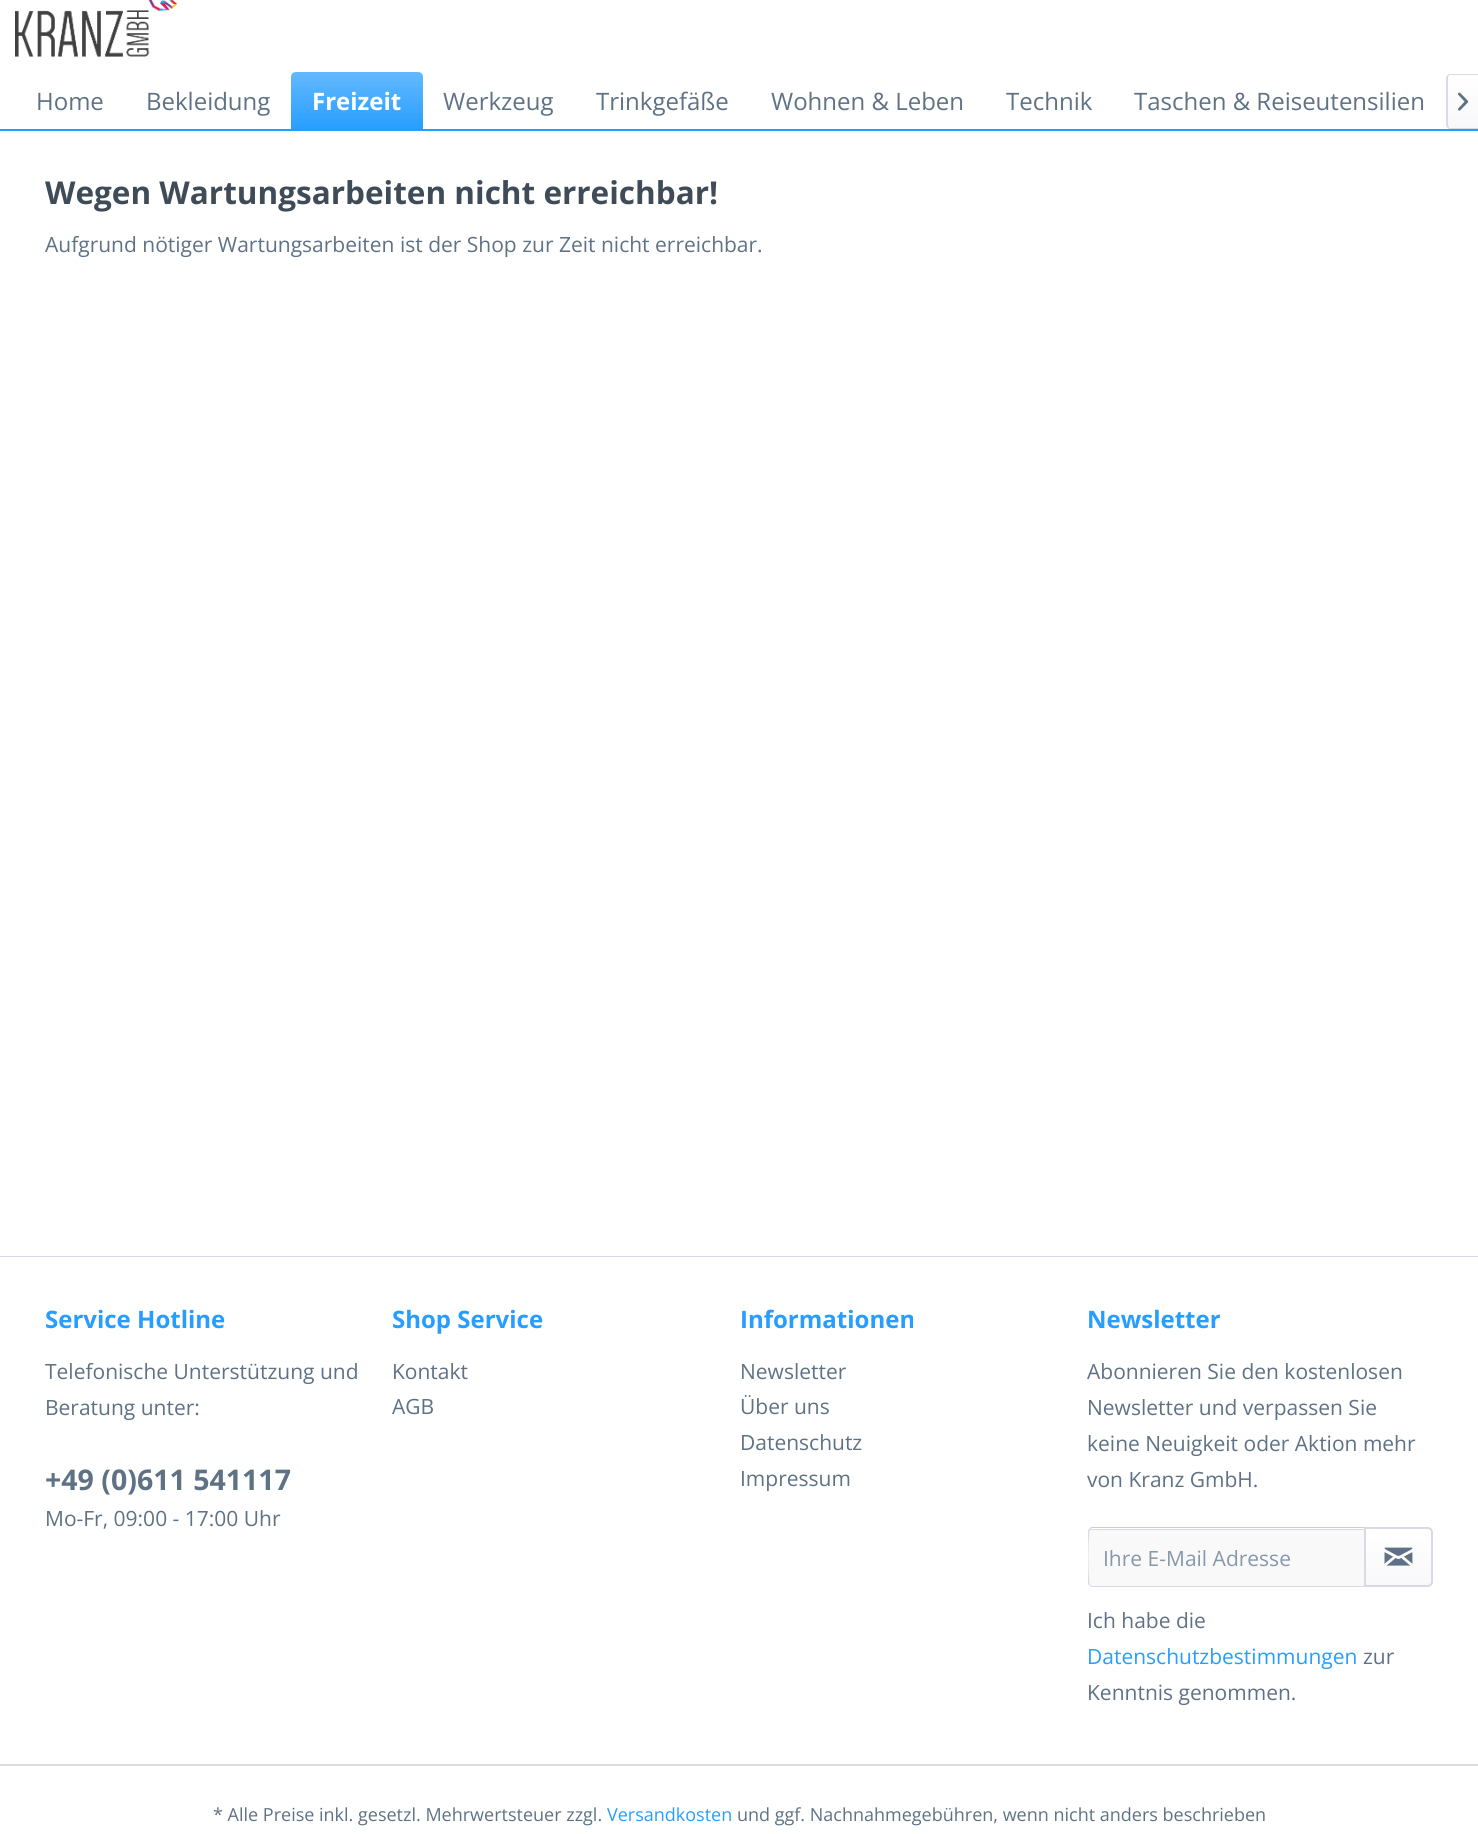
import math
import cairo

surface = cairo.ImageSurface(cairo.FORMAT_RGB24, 1478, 1834)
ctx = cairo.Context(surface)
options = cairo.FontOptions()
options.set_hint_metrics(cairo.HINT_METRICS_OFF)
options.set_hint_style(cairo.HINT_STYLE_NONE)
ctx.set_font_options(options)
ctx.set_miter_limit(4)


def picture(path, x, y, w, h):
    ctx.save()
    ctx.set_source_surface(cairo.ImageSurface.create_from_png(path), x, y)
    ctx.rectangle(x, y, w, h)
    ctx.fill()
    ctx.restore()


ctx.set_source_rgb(1, 1, 1)
ctx.paint()
picture("img1.png", 15, 0, 163, 57)
ctx.set_source_rgb(0.153, 0.62, 1)
ctx.rectangle(0, 129, 1478, 2)
ctx.fill()
ctx.select_font_face("Open Sans")
ctx.set_font_size(24)
ctx.set_source_rgb(0.373, 0.447, 0.522)
ctx.move_to(36, 110)
ctx.show_text("Home")
ctx.move_to(146, 110)
ctx.show_text("Bekleidung")
gradient = cairo.LinearGradient(357, 72, 357, 129)
gradient.add_color_stop_rgba(0, 0.392, 0.725, 1, 1)
gradient.add_color_stop_rgba(1, 0.153, 0.62, 1, 1)
ctx.set_source(gradient)
ctx.new_path()
ctx.move_to(296, 72)
ctx.line_to(418, 72)
ctx.curve_to(421, 72, 423, 74, 423, 77)
ctx.line_to(423, 129)
ctx.line_to(291, 129)
ctx.line_to(291, 77)
ctx.curve_to(291, 74, 293, 72, 296, 72)
ctx.close_path()
ctx.fill()
ctx.select_font_face("Open Sans", cairo.FONT_SLANT_NORMAL, cairo.FONT_WEIGHT_BOLD)
ctx.set_source_rgb(1, 1, 1)
ctx.move_to(312, 110)
ctx.show_text("Freizeit")
ctx.select_font_face("Open Sans")
ctx.set_source_rgb(0.373, 0.447, 0.522)
ctx.move_to(443, 110)
ctx.show_text("Werkzeug")
ctx.move_to(596, 110)
ctx.show_text("Trinkgefäße")
ctx.move_to(771, 110)
ctx.show_text("Wohnen & Leben")
ctx.move_to(1006, 110)
ctx.show_text("Technik")
ctx.move_to(1134, 110)
ctx.show_text("Taschen & Reiseutensilien")
gradient = cairo.LinearGradient(1463, 75, 1463, 128)
gradient.add_color_stop_rgba(0, 1, 1, 1, 1)
gradient.add_color_stop_rgba(1, 0.973, 0.973, 0.98, 1)
ctx.set_source(gradient)
ctx.new_path()
ctx.move_to(1451, 75)
ctx.line_to(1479, 75)
ctx.line_to(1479, 128)
ctx.line_to(1451, 128)
ctx.curve_to(1449.5, 128, 1448, 126.5, 1448, 125)
ctx.line_to(1448, 78)
ctx.curve_to(1448, 76.5, 1449.5, 75, 1451, 75)
ctx.close_path()
ctx.fill()
ctx.set_source_rgb(0.855, 0.855, 0.898)
ctx.set_fill_rule(cairo.FILL_RULE_EVEN_ODD)
ctx.new_path()
ctx.move_to(1450, 74)
ctx.line_to(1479, 74)
ctx.line_to(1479, 129)
ctx.line_to(1450, 129)
ctx.curve_to(1448, 129, 1446, 127, 1446, 124)
ctx.line_to(1446, 78)
ctx.curve_to(1446, 76, 1448, 74, 1450, 74)
ctx.close_path()
ctx.move_to(1450, 75)
ctx.line_to(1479, 75)
ctx.line_to(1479, 128)
ctx.line_to(1450, 128)
ctx.curve_to(1449, 128, 1448, 126, 1448, 124)
ctx.line_to(1448, 78)
ctx.curve_to(1448, 76, 1449, 75, 1450, 75)
ctx.close_path()
ctx.fill()
picture("img2.png", 1458, 92, 11, 19)
ctx.select_font_face("Open Sans", cairo.FONT_SLANT_NORMAL, cairo.FONT_WEIGHT_BOLD)
ctx.set_font_size(31.5)
ctx.set_source_rgb(0.247, 0.298, 0.345)
ctx.move_to(45, 204)
ctx.show_text("Wegen Wartungsarbeiten nicht erreichbar!")
ctx.select_font_face("Open Sans")
ctx.set_font_size(21)
ctx.set_source_rgb(0.373, 0.447, 0.522)
ctx.move_to(45, 252)
ctx.show_text("Aufgrund nötiger Wartungsarbeiten ist der Shop zur Zeit nicht erreichbar.")
ctx.set_source_rgb(0.855, 0.855, 0.898)
ctx.rectangle(0, 1256, 1478, 1)
ctx.fill()
ctx.rectangle(0, 1764, 1478, 2)
ctx.fill()
ctx.select_font_face("Open Sans", cairo.FONT_SLANT_NORMAL, cairo.FONT_WEIGHT_BOLD)
ctx.set_font_size(24)
ctx.set_source_rgb(0.153, 0.62, 1)
ctx.move_to(45, 1328)
ctx.show_text("Service Hotline")
ctx.select_font_face("Open Sans")
ctx.set_font_size(21)
ctx.set_source_rgb(0.373, 0.447, 0.522)
ctx.move_to(45, 1379)
ctx.show_text("Telefonische Unterstützung und")
ctx.move_to(45, 1415)
ctx.show_text("Beratung unter:")
ctx.select_font_face("Open Sans", cairo.FONT_SLANT_NORMAL, cairo.FONT_WEIGHT_BOLD)
ctx.set_font_size(28.5)
ctx.move_to(45, 1490)
ctx.show_text("+49 (0)611 541117")
ctx.select_font_face("Open Sans")
ctx.set_font_size(21)
ctx.move_to(45, 1526)
ctx.show_text("Mo-Fr, 09:00 - 17:00 Uhr")
ctx.select_font_face("Open Sans", cairo.FONT_SLANT_NORMAL, cairo.FONT_WEIGHT_BOLD)
ctx.set_font_size(24)
ctx.set_source_rgb(0.153, 0.62, 1)
ctx.move_to(392, 1328)
ctx.show_text("Shop Service")
ctx.select_font_face("Open Sans")
ctx.set_font_size(21)
ctx.set_source_rgb(0.373, 0.447, 0.522)
ctx.move_to(392, 1379)
ctx.show_text("Kontakt")
ctx.move_to(392, 1414)
ctx.show_text("AGB")
ctx.select_font_face("Open Sans", cairo.FONT_SLANT_NORMAL, cairo.FONT_WEIGHT_BOLD)
ctx.set_font_size(24)
ctx.set_source_rgb(0.153, 0.62, 1)
ctx.move_to(740, 1328)
ctx.show_text("Informationen")
ctx.select_font_face("Open Sans")
ctx.set_font_size(21)
ctx.set_source_rgb(0.373, 0.447, 0.522)
ctx.move_to(740, 1379)
ctx.show_text("Newsletter")
ctx.move_to(740, 1414)
ctx.show_text("Über uns")
ctx.move_to(740, 1450)
ctx.show_text("Datenschutz")
ctx.move_to(740, 1486)
ctx.show_text("Impressum")
ctx.select_font_face("Open Sans", cairo.FONT_SLANT_NORMAL, cairo.FONT_WEIGHT_BOLD)
ctx.set_font_size(24)
ctx.set_source_rgb(0.153, 0.62, 1)
ctx.move_to(1087, 1328)
ctx.show_text("Newsletter")
ctx.select_font_face("Open Sans")
ctx.set_font_size(21)
ctx.set_source_rgb(0.373, 0.447, 0.522)
ctx.move_to(1087, 1379)
ctx.show_text("Abonnieren Sie den kostenlosen")
ctx.move_to(1087, 1415)
ctx.show_text("Newsletter und verpassen Sie")
ctx.move_to(1087, 1451)
ctx.show_text("keine Neuigkeit oder Aktion mehr")
ctx.move_to(1087, 1487)
ctx.show_text("von Kranz GmbH.")
ctx.set_source_rgb(0.973, 0.973, 0.98)
ctx.new_path()
ctx.move_to(1092, 1529)
ctx.line_to(1364, 1529)
ctx.line_to(1364, 1586)
ctx.line_to(1092, 1586)
ctx.curve_to(1090.5, 1586, 1089, 1584.5, 1089, 1583)
ctx.line_to(1089, 1532)
ctx.curve_to(1089, 1530.5, 1090.5, 1529, 1092, 1529)
ctx.close_path()
ctx.fill()
ctx.set_source_rgb(0.855, 0.855, 0.898)
ctx.set_fill_rule(cairo.FILL_RULE_WINDING)
ctx.new_path()
ctx.move_to(1092, 1530)
ctx.line_to(1364, 1530)
ctx.line_to(1364, 1529)
ctx.line_to(1092, 1529)
ctx.curve_to(1090, 1529, 1089, 1530, 1089, 1532)
ctx.line_to(1089, 1533)
ctx.curve_to(1089, 1531, 1090, 1530, 1092, 1530)
ctx.close_path()
ctx.fill()
ctx.set_source_rgb(0.796, 0.796, 0.859)
ctx.new_path()
ctx.move_to(1092, 1527)
ctx.curve_to(1091, 1527, 1090, 1528, 1089, 1529)
ctx.line_to(1090, 1529)
ctx.line_to(1092, 1528)
ctx.line_to(1364, 1528)
ctx.line_to(1365, 1527)
ctx.close_path()
ctx.fill()
ctx.set_source_rgb(0.855, 0.855, 0.898)
ctx.new_path()
ctx.move_to(1365, 1587)
ctx.line_to(1364, 1586)
ctx.line_to(1092, 1586)
ctx.line_to(1090, 1585)
ctx.line_to(1089, 1585)
ctx.curve_to(1090, 1586, 1091, 1587, 1092, 1587)
ctx.close_path()
ctx.fill()
ctx.new_path()
ctx.move_to(1089, 1529)
ctx.curve_to(1088, 1529, 1088, 1531, 1088, 1532)
ctx.line_to(1088, 1582)
ctx.curve_to(1088, 1583, 1088, 1585, 1089, 1585)
ctx.line_to(1090, 1585)
ctx.curve_to(1088, 1583, 1088, 1531, 1090, 1529)
ctx.close_path()
ctx.fill()
ctx.set_source_rgb(0.529, 0.596, 0.663)
ctx.move_to(1103, 1566)
ctx.show_text("Ihre E-Mail Adresse")
gradient = cairo.LinearGradient(1398, 1529, 1398, 1586)
gradient.add_color_stop_rgba(0, 1, 1, 1, 1)
gradient.add_color_stop_rgba(1, 0.973, 0.973, 0.98, 1)
ctx.set_source(gradient)
ctx.new_path()
ctx.move_to(1365, 1529)
ctx.line_to(1428, 1529)
ctx.curve_to(1429.5, 1529, 1431, 1530.5, 1431, 1532)
ctx.line_to(1431, 1583)
ctx.curve_to(1431, 1584.5, 1429.5, 1586, 1428, 1586)
ctx.line_to(1365, 1586)
ctx.close_path()
ctx.fill()
ctx.new_path()
ctx.move_to(1365, 1528)
ctx.line_to(1428, 1528)
ctx.curve_to(1430, 1528, 1432, 1530, 1432, 1532)
ctx.line_to(1432, 1582)
ctx.curve_to(1432, 1584, 1430, 1586, 1428, 1586)
ctx.line_to(1365, 1586)
ctx.close_path()
ctx.set_source_rgb(0.855, 0.855, 0.898)
ctx.stroke()
picture("img3.png", 1384, 1547, 29, 19)
ctx.set_source_rgb(0.373, 0.447, 0.522)
ctx.move_to(1087, 1628)
ctx.show_text("Ich habe die")
ctx.set_source_rgb(0.153, 0.62, 1)
ctx.move_to(1087, 1664)
ctx.show_text("Datenschutzbestimmungen")
ctx.set_source_rgb(0.373, 0.447, 0.522)
ctx.move_to(1363, 1664)
ctx.show_text("zur")
ctx.move_to(1087, 1700)
ctx.show_text("Kenntnis genommen.")
ctx.set_font_size(18)
ctx.move_to(213, 1821)
ctx.show_text("* Alle Preise inkl. gesetzl. Mehrwertsteuer zzgl.")
ctx.set_source_rgb(0.153, 0.62, 1)
ctx.move_to(607, 1821)
ctx.show_text("Versandkosten")
ctx.set_source_rgb(0.373, 0.447, 0.522)
ctx.move_to(737, 1821)
ctx.show_text("und ggf. Nachnahmegebühren, wenn nicht anders beschrieben")
surface.write_to_png("page.png")
